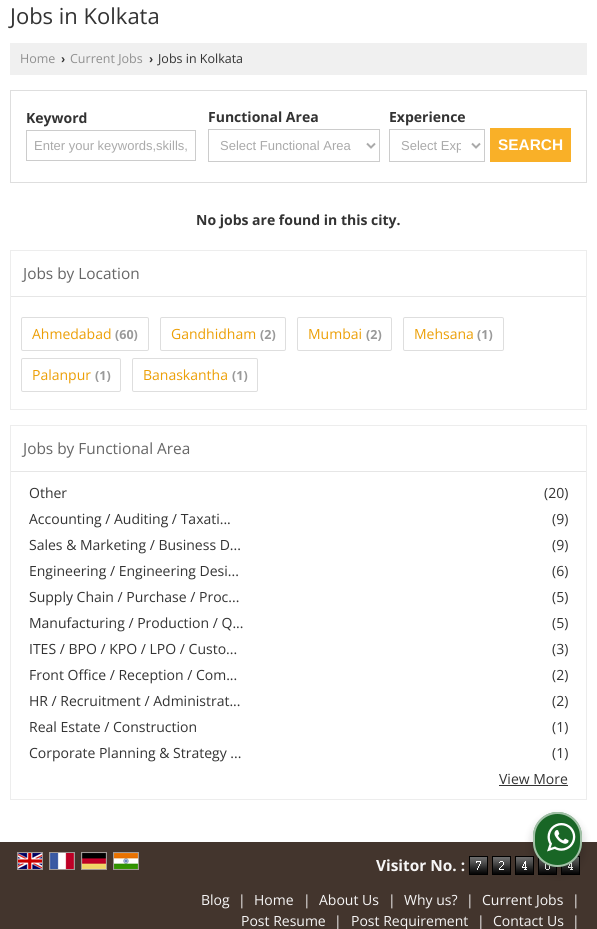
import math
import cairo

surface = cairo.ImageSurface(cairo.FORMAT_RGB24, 597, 929)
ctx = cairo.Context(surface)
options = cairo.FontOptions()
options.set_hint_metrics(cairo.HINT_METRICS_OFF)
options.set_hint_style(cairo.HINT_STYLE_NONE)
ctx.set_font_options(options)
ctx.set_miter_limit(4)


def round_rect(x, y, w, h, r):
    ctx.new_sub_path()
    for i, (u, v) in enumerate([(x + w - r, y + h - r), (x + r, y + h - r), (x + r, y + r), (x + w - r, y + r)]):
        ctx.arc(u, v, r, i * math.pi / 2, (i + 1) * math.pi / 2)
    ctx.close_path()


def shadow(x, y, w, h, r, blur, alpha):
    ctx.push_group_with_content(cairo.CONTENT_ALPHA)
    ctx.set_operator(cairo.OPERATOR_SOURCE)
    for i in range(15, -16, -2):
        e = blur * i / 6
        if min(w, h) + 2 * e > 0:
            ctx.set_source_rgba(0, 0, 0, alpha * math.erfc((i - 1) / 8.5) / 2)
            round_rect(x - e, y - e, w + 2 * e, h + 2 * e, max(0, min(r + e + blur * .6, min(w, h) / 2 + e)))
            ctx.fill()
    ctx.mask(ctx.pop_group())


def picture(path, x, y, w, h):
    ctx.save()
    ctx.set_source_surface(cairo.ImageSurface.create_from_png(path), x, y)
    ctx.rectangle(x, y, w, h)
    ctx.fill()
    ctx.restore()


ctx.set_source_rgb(1, 1, 1)
ctx.paint()
ctx.select_font_face("Open Sans")
ctx.set_font_size(22)
ctx.set_source_rgb(0.2, 0.2, 0.2)
ctx.move_to(10, 24)
ctx.show_text("Jobs in Kolkata")
ctx.set_source_rgb(0.941, 0.941, 0.941)
ctx.rectangle(10, 43, 577, 32)
ctx.fill()
ctx.set_font_size(12.5)
ctx.set_source_rgb(0.565, 0.565, 0.565)
ctx.move_to(20, 63)
ctx.show_text("Home")
ctx.select_font_face("Liberation Sans", cairo.FONT_SLANT_NORMAL, cairo.FONT_WEIGHT_BOLD)
ctx.set_source_rgb(0.2, 0.2, 0.2)
ctx.move_to(61, 63)
ctx.show_text("›")
ctx.select_font_face("Open Sans")
ctx.set_source_rgb(0.565, 0.565, 0.565)
ctx.move_to(70, 63)
ctx.show_text("Current Jobs")
ctx.select_font_face("Liberation Sans", cairo.FONT_SLANT_NORMAL, cairo.FONT_WEIGHT_BOLD)
ctx.set_source_rgb(0.2, 0.2, 0.2)
ctx.move_to(149, 63)
ctx.show_text("›")
ctx.select_font_face("Open Sans")
ctx.move_to(158, 63)
ctx.show_text("Jobs in Kolkata")
ctx.rectangle(10.5, 90.5, 576, 92)
ctx.set_source_rgb(0.871, 0.871, 0.871)
ctx.set_line_width(1)
ctx.stroke()
ctx.select_font_face("Open Sans", cairo.FONT_SLANT_NORMAL, cairo.FONT_WEIGHT_BOLD)
ctx.set_font_size(14)
ctx.set_source_rgb(0.2, 0.2, 0.2)
ctx.move_to(26, 123)
ctx.show_text("Keyword")
ctx.rectangle(26.5, 130.5, 169, 30)
ctx.set_source_rgb(0.8, 0.8, 0.8)
ctx.stroke()
ctx.select_font_face("Liberation Sans")
ctx.set_font_size(13)
ctx.set_source_rgb(0.667, 0.667, 0.667)
ctx.move_to(34, 150)
ctx.show_text("Enter your keywords,skills,")
ctx.select_font_face("Open Sans", cairo.FONT_SLANT_NORMAL, cairo.FONT_WEIGHT_BOLD)
ctx.set_font_size(14)
ctx.set_source_rgb(0.2, 0.2, 0.2)
ctx.move_to(208, 122)
ctx.show_text("Functional Area")
ctx.rectangle(208.5, 129.5, 171, 32)
ctx.set_source_rgb(0.8, 0.8, 0.8)
ctx.stroke()
ctx.new_path()
ctx.move_to(367, 143.5)
ctx.line_to(371, 147.5)
ctx.line_to(375, 143.5)
ctx.set_source_rgb(0.667, 0.667, 0.667)
ctx.set_line_width(2)
ctx.stroke()
ctx.select_font_face("Liberation Sans")
ctx.set_font_size(13)
ctx.move_to(220, 150)
ctx.show_text("Select Functional Area")
ctx.select_font_face("Open Sans", cairo.FONT_SLANT_NORMAL, cairo.FONT_WEIGHT_BOLD)
ctx.set_font_size(14)
ctx.set_source_rgb(0.2, 0.2, 0.2)
ctx.move_to(389, 122)
ctx.show_text("Experience")
ctx.rectangle(389.5, 129.5, 95, 32)
ctx.set_source_rgb(0.8, 0.8, 0.8)
ctx.set_line_width(1)
ctx.stroke()
ctx.new_path()
ctx.move_to(472, 143.5)
ctx.line_to(476, 147.5)
ctx.line_to(480, 143.5)
ctx.set_source_rgb(0.667, 0.667, 0.667)
ctx.set_line_width(2)
ctx.stroke()
ctx.save()
ctx.rectangle(401, 137, 60, 17)
ctx.clip()
ctx.select_font_face("Liberation Sans")
ctx.set_font_size(13)
ctx.move_to(401, 150)
ctx.show_text("Select Exp")
ctx.restore()
ctx.set_source_rgb(0.976, 0.69, 0.157)
ctx.rectangle(490, 128, 81, 34)
ctx.fill()
ctx.select_font_face("Liberation Sans", cairo.FONT_SLANT_NORMAL, cairo.FONT_WEIGHT_BOLD)
ctx.set_font_size(15.4)
ctx.set_source_rgb(1, 1, 1)
ctx.move_to(498, 150)
ctx.show_text("SEARCH")
ctx.select_font_face("Open Sans", cairo.FONT_SLANT_NORMAL, cairo.FONT_WEIGHT_BOLD)
ctx.set_font_size(14)
ctx.set_source_rgb(0.2, 0.2, 0.2)
ctx.move_to(196, 225)
ctx.show_text("No jobs are found in this city.")
ctx.rectangle(10.5, 250.5, 576, 159)
ctx.set_source_rgb(0.929, 0.929, 0.929)
ctx.set_line_width(1)
ctx.stroke()
ctx.set_source_rgb(0.902, 0.902, 0.902)
ctx.rectangle(11, 296, 575, 1)
ctx.fill()
ctx.select_font_face("Open Sans")
ctx.set_font_size(15.4)
ctx.set_source_rgb(0.4, 0.4, 0.4)
ctx.move_to(23, 279)
ctx.show_text("Jobs by Location")
round_rect(21.5, 317.5, 127, 33, 1.5)
ctx.set_source_rgb(0.871, 0.871, 0.871)
ctx.stroke()
ctx.set_font_size(14)
ctx.set_source_rgb(0.922, 0.624, 0.027)
ctx.move_to(32, 339)
ctx.show_text("Ahmedabad")
ctx.select_font_face("Open Sans", cairo.FONT_SLANT_NORMAL, cairo.FONT_WEIGHT_BOLD)
ctx.set_font_size(12.5)
ctx.set_source_rgb(0.6, 0.6, 0.6)
ctx.move_to(115, 339)
ctx.show_text("(60)")
round_rect(160.5, 317.5, 125, 33, 1.5)
ctx.set_source_rgb(0.871, 0.871, 0.871)
ctx.stroke()
ctx.select_font_face("Open Sans")
ctx.set_font_size(14)
ctx.set_source_rgb(0.922, 0.624, 0.027)
ctx.move_to(171, 339)
ctx.show_text("Gandhidham")
ctx.select_font_face("Open Sans", cairo.FONT_SLANT_NORMAL, cairo.FONT_WEIGHT_BOLD)
ctx.set_font_size(12.5)
ctx.set_source_rgb(0.6, 0.6, 0.6)
ctx.move_to(260, 339)
ctx.show_text("(2)")
round_rect(297.5, 317.5, 94, 33, 1.5)
ctx.set_source_rgb(0.871, 0.871, 0.871)
ctx.stroke()
ctx.select_font_face("Open Sans")
ctx.set_font_size(14)
ctx.set_source_rgb(0.922, 0.624, 0.027)
ctx.move_to(308, 339)
ctx.show_text("Mumbai")
ctx.select_font_face("Open Sans", cairo.FONT_SLANT_NORMAL, cairo.FONT_WEIGHT_BOLD)
ctx.set_font_size(12.5)
ctx.set_source_rgb(0.6, 0.6, 0.6)
ctx.move_to(366, 339)
ctx.show_text("(2)")
round_rect(403.5, 317.5, 100, 33, 1.5)
ctx.set_source_rgb(0.871, 0.871, 0.871)
ctx.stroke()
ctx.select_font_face("Open Sans")
ctx.set_font_size(14)
ctx.set_source_rgb(0.922, 0.624, 0.027)
ctx.move_to(414, 339)
ctx.show_text("Mehsana")
ctx.select_font_face("Open Sans", cairo.FONT_SLANT_NORMAL, cairo.FONT_WEIGHT_BOLD)
ctx.set_font_size(12.5)
ctx.set_source_rgb(0.6, 0.6, 0.6)
ctx.move_to(477, 339)
ctx.show_text("(1)")
round_rect(21.5, 358.5, 99, 33, 1.5)
ctx.set_source_rgb(0.871, 0.871, 0.871)
ctx.stroke()
ctx.select_font_face("Open Sans")
ctx.set_font_size(14)
ctx.set_source_rgb(0.922, 0.624, 0.027)
ctx.move_to(32, 380)
ctx.show_text("Palanpur")
ctx.select_font_face("Open Sans", cairo.FONT_SLANT_NORMAL, cairo.FONT_WEIGHT_BOLD)
ctx.set_font_size(12.5)
ctx.set_source_rgb(0.6, 0.6, 0.6)
ctx.move_to(95, 380)
ctx.show_text("(1)")
round_rect(132.5, 358.5, 125, 33, 1.5)
ctx.set_source_rgb(0.871, 0.871, 0.871)
ctx.stroke()
ctx.select_font_face("Open Sans")
ctx.set_font_size(14)
ctx.set_source_rgb(0.922, 0.624, 0.027)
ctx.move_to(143, 380)
ctx.show_text("Banaskantha")
ctx.select_font_face("Open Sans", cairo.FONT_SLANT_NORMAL, cairo.FONT_WEIGHT_BOLD)
ctx.set_font_size(12.5)
ctx.set_source_rgb(0.6, 0.6, 0.6)
ctx.move_to(232, 380)
ctx.show_text("(1)")
ctx.rectangle(10.5, 425.5, 576, 374)
ctx.set_source_rgb(0.929, 0.929, 0.929)
ctx.stroke()
ctx.set_source_rgb(0.902, 0.902, 0.902)
ctx.rectangle(11, 471, 575, 1)
ctx.fill()
ctx.select_font_face("Open Sans")
ctx.set_font_size(15.4)
ctx.set_source_rgb(0.4, 0.4, 0.4)
ctx.move_to(23, 454)
ctx.show_text("Jobs by Functional Area")
ctx.set_font_size(14)
ctx.set_source_rgb(0.2, 0.2, 0.2)
ctx.move_to(29, 498)
ctx.show_text("Other")
ctx.move_to(544, 498)
ctx.show_text("(20)")
ctx.move_to(29, 524)
ctx.show_text("Accounting / Auditing / Taxati...")
ctx.move_to(552, 524)
ctx.show_text("(9)")
ctx.move_to(29, 550)
ctx.show_text("Sales & Marketing / Business D...")
ctx.move_to(552, 550)
ctx.show_text("(9)")
ctx.move_to(29, 576)
ctx.show_text("Engineering / Engineering Desi...")
ctx.move_to(552, 576)
ctx.show_text("(6)")
ctx.move_to(29, 602)
ctx.show_text("Supply Chain / Purchase / Proc...")
ctx.move_to(552, 602)
ctx.show_text("(5)")
ctx.move_to(29, 628)
ctx.show_text("Manufacturing / Production / Q...")
ctx.move_to(552, 628)
ctx.show_text("(5)")
ctx.move_to(29, 654)
ctx.show_text("ITES / BPO / KPO / LPO / Custo...")
ctx.move_to(552, 654)
ctx.show_text("(3)")
ctx.move_to(29, 680)
ctx.show_text("Front Office / Reception / Com...")
ctx.move_to(552, 680)
ctx.show_text("(2)")
ctx.move_to(29, 706)
ctx.show_text("HR / Recruitment / Administrat...")
ctx.move_to(552, 706)
ctx.show_text("(2)")
ctx.move_to(29, 732)
ctx.show_text("Real Estate / Construction")
ctx.move_to(552, 732)
ctx.show_text("(1)")
ctx.move_to(29, 758)
ctx.show_text("Corporate Planning & Strategy ...")
ctx.move_to(552, 758)
ctx.show_text("(1)")
ctx.move_to(499, 784)
ctx.show_text("View More")
ctx.rectangle(499, 785, 69, 1)
ctx.fill()
ctx.set_source_rgb(0.263, 0.208, 0.176)
ctx.rectangle(0, 842, 597, 87)
ctx.fill()
ctx.rectangle(17.5, 852.5, 25, 17)
ctx.set_source_rgb(0.631, 0.604, 0.588)
ctx.stroke()
ctx.rectangle(49.5, 852.5, 25, 17)
ctx.stroke()
ctx.rectangle(81.5, 852.5, 25, 17)
ctx.stroke()
ctx.rectangle(113.5, 852.5, 25, 17)
ctx.stroke()
picture("img1.png", 18, 853, 24, 16)
picture("img2.png", 50, 853, 24, 16)
picture("img3.png", 82, 853, 24, 16)
picture("img4.png", 114, 853, 24, 16)
ctx.select_font_face("Open Sans", cairo.FONT_SLANT_NORMAL, cairo.FONT_WEIGHT_BOLD)
ctx.set_font_size(15.4)
ctx.set_source_rgb(0.965, 0.961, 0.961)
ctx.move_to(376, 871)
ctx.show_text("Visitor No. :")
picture("img5.png", 469, 856, 19, 19)
picture("img6.png", 492, 856, 19, 19)
picture("img7.png", 515, 856, 19, 19)
picture("img8.png", 538, 857, 19, 18)
picture("img7.png", 561, 856, 19, 19)
ctx.select_font_face("Open Sans")
ctx.set_font_size(14)
ctx.move_to(201, 905)
ctx.show_text("Blog")
ctx.move_to(238, 905)
ctx.show_text("|")
ctx.move_to(254, 905)
ctx.show_text("Home")
ctx.move_to(303, 905)
ctx.show_text("|")
ctx.move_to(319, 905)
ctx.show_text("About Us")
ctx.move_to(388, 905)
ctx.show_text("|")
ctx.move_to(404, 905)
ctx.show_text("Why us?")
ctx.move_to(466, 905)
ctx.show_text("|")
ctx.move_to(482, 905)
ctx.show_text("Current Jobs")
ctx.move_to(572, 905)
ctx.show_text("|")
ctx.move_to(241, 926)
ctx.show_text("Post Resume")
ctx.move_to(334, 926)
ctx.show_text("|")
ctx.move_to(351, 926)
ctx.show_text("Post Requirement")
ctx.move_to(477, 926)
ctx.show_text("|")
ctx.move_to(493, 926)
ctx.show_text("Contact Us")
ctx.move_to(572, 926)
ctx.show_text("|")
ctx.set_source_rgb(0, 0, 0)
shadow(531, 816, 53, 59, 26.5, 4, 0.14)
ctx.set_source_rgb(0.098, 0.4, 0.149)
round_rect(533, 812, 49, 55, 24.5)
ctx.fill()
round_rect(534, 813, 47, 53, 23.5)
ctx.set_source_rgba(1, 1, 1, 0.6)
ctx.set_line_width(2)
ctx.stroke()
picture("img9.png", 547, 823, 29, 29)
surface.write_to_png("page.png")
